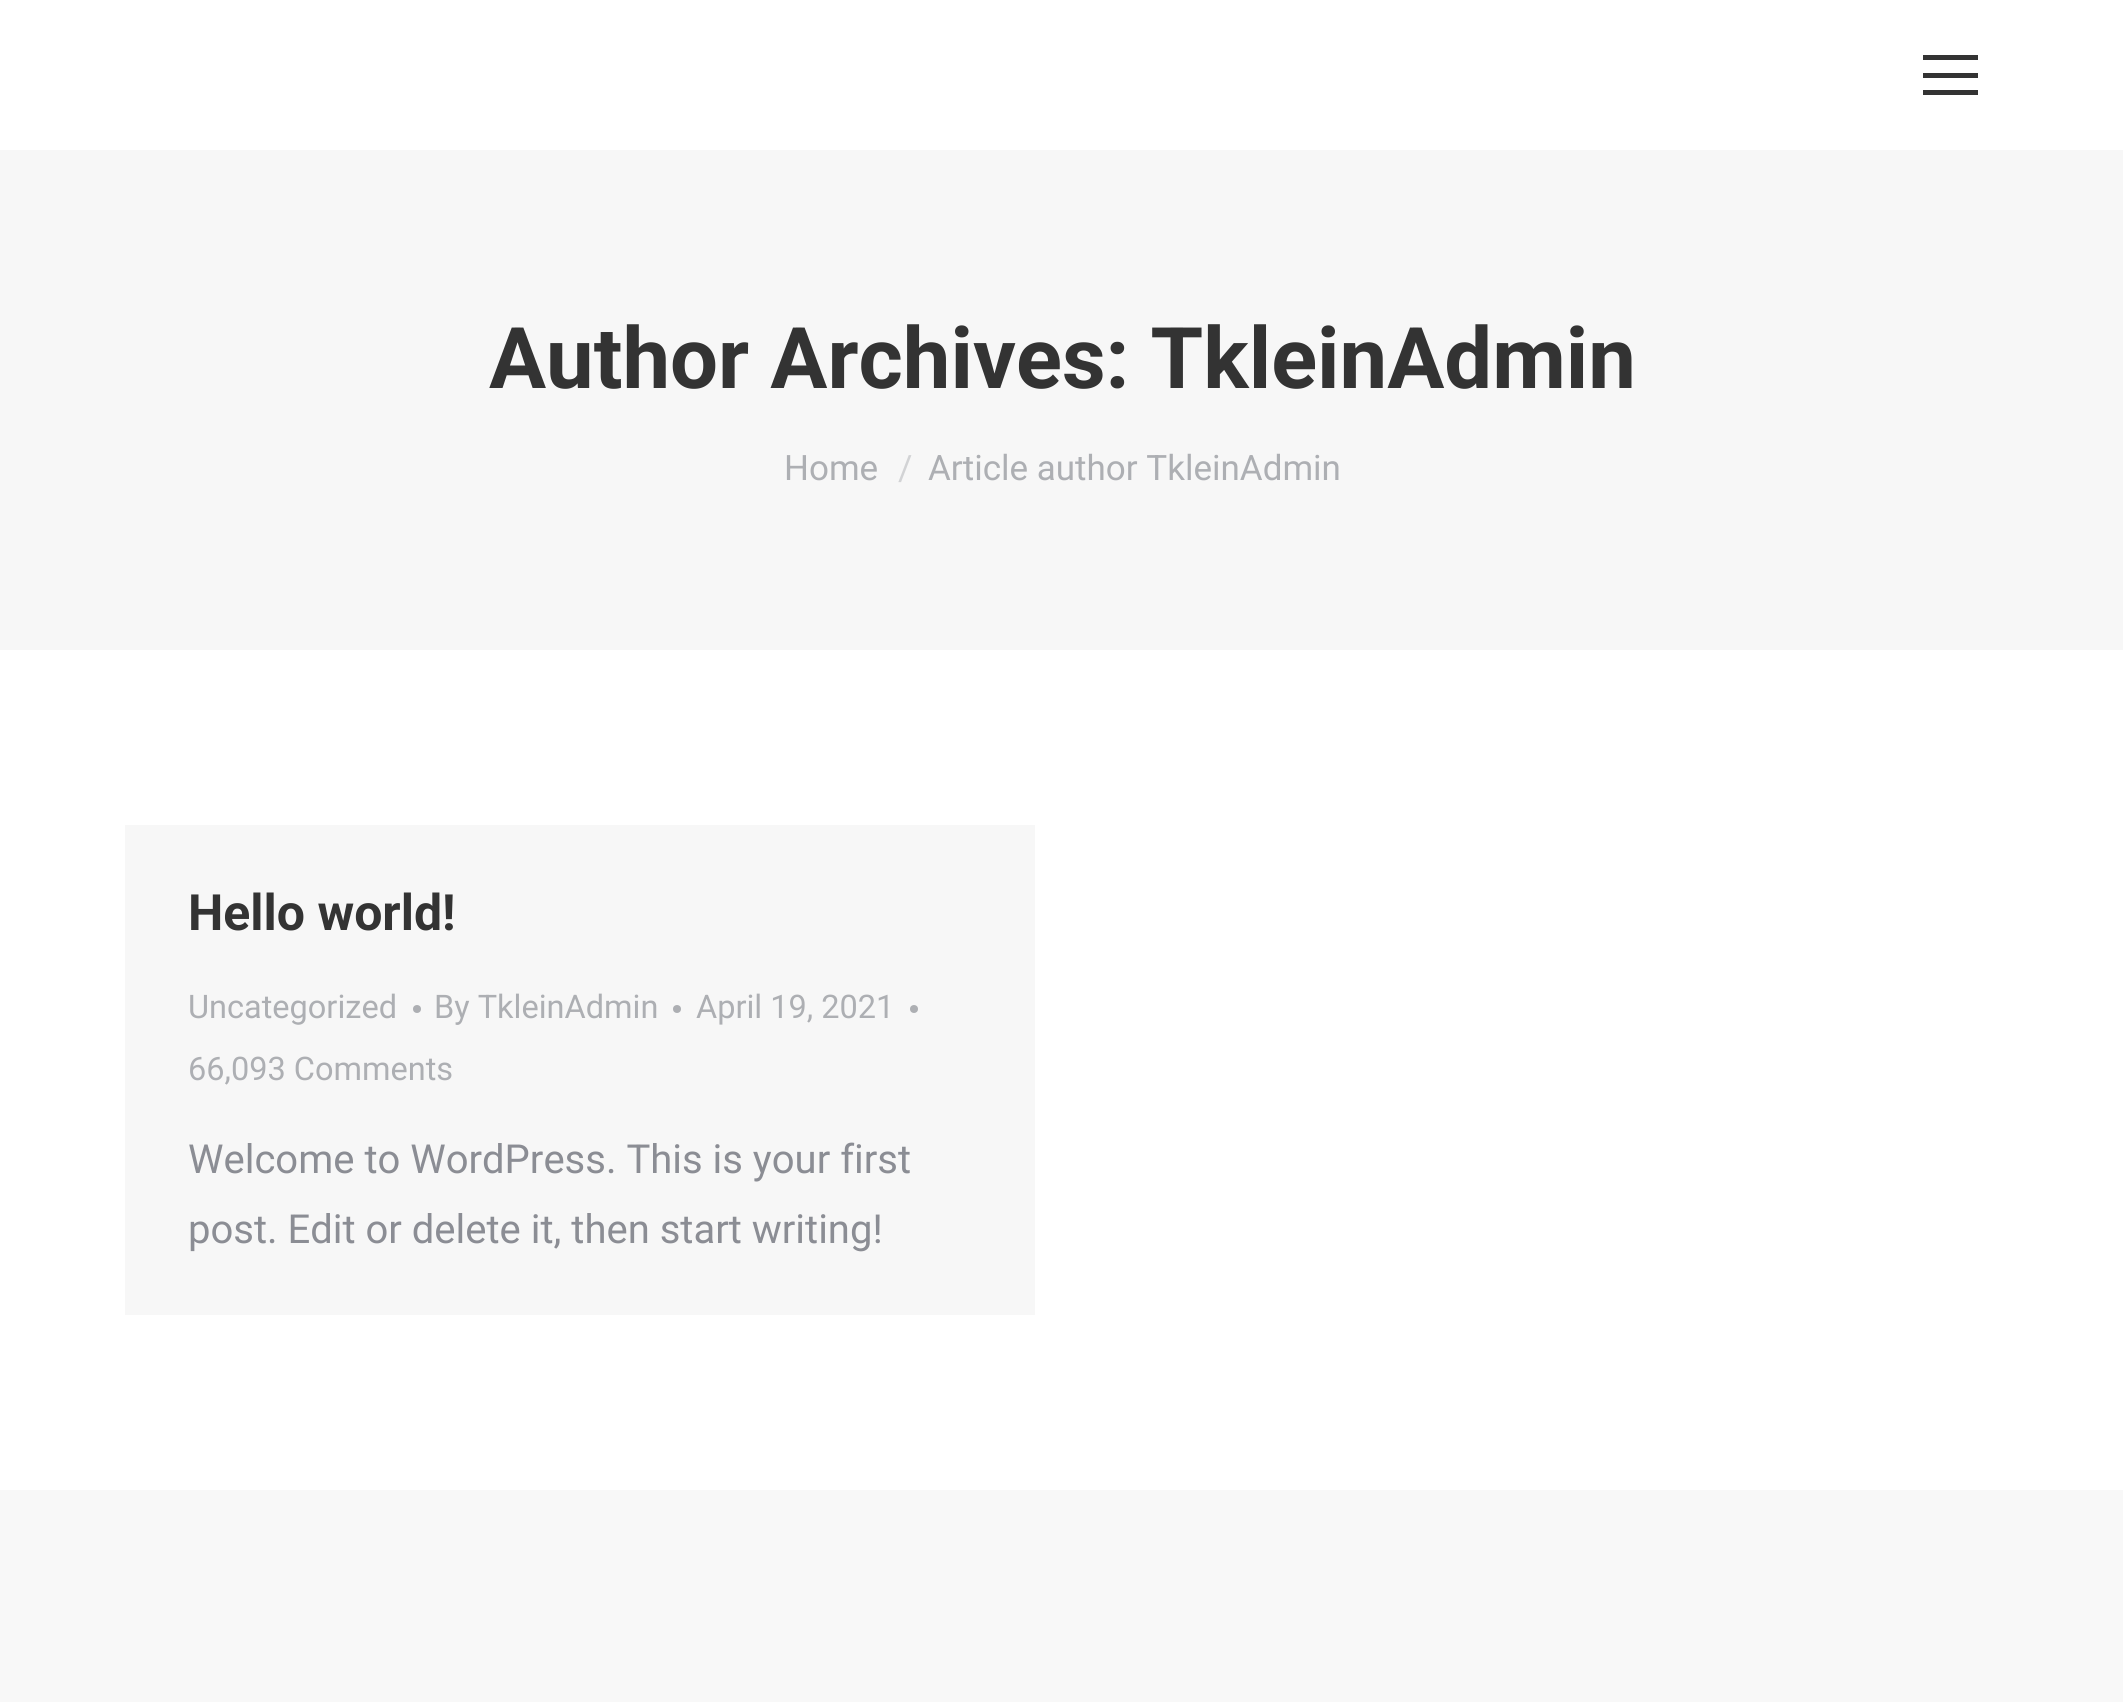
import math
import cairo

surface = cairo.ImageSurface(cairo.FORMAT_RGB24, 2123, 1702)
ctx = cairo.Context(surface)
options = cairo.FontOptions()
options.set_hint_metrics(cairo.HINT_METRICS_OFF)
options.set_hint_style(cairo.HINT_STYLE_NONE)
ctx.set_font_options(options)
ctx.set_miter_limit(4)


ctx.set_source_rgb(0.969, 0.969, 0.969)
ctx.paint()
ctx.set_source_rgb(1, 1, 1)
ctx.rectangle(0, 0, 2123, 1490)
ctx.fill()
ctx.set_source_rgb(0.2, 0.2, 0.2)
ctx.rectangle(1923, 55, 55, 5)
ctx.fill()
ctx.rectangle(1923, 73, 55, 5)
ctx.fill()
ctx.rectangle(1923, 90, 55, 5)
ctx.fill()
ctx.set_source_rgb(0.965, 0.965, 0.965)
ctx.rectangle(0, 150, 2123, 500)
ctx.fill()
ctx.select_font_face("Roboto", cairo.FONT_SLANT_NORMAL, cairo.FONT_WEIGHT_BOLD)
ctx.set_font_size(85)
ctx.set_source_rgb(0.2, 0.2, 0.2)
ctx.move_to(489, 388)
ctx.show_text("Author Archives: TkleinAdmin")
ctx.select_font_face("Roboto")
ctx.set_font_size(35)
ctx.set_source_rgb(0.678, 0.686, 0.702)
ctx.move_to(784, 480)
ctx.show_text("Home")
ctx.set_source_rgb(0.824, 0.827, 0.835)
ctx.move_to(898, 480)
ctx.show_text("/")
ctx.set_source_rgb(0.678, 0.686, 0.702)
ctx.move_to(928, 480)
ctx.show_text("Article author TkleinAdmin")
ctx.set_source_rgb(0.965, 0.965, 0.965)
ctx.rectangle(125, 825, 910, 490)
ctx.fill()
ctx.select_font_face("Roboto", cairo.FONT_SLANT_NORMAL, cairo.FONT_WEIGHT_BOLD)
ctx.set_font_size(50)
ctx.set_source_rgb(0.2, 0.2, 0.2)
ctx.move_to(188, 930)
ctx.show_text("Hello world!")
ctx.select_font_face("Roboto")
ctx.set_font_size(32.5)
ctx.set_source_rgb(0.678, 0.686, 0.702)
ctx.move_to(188, 1018)
ctx.show_text("Uncategorized")
ctx.new_path()
ctx.arc(417, 1009, 4, 0, 2 * math.pi)
ctx.fill()
ctx.move_to(434, 1018)
ctx.show_text("By TkleinAdmin")
ctx.new_path()
ctx.arc(677, 1009, 4, 0, 2 * math.pi)
ctx.fill()
ctx.move_to(696, 1018)
ctx.show_text("April 19, 2021")
ctx.new_path()
ctx.arc(914, 1009, 4, 0, 2 * math.pi)
ctx.fill()
ctx.move_to(188, 1080)
ctx.show_text("66,093 Comments")
ctx.set_font_size(40)
ctx.set_source_rgb(0.545, 0.553, 0.58)
ctx.move_to(188, 1173)
ctx.show_text("Welcome to WordPress. This is your first")
ctx.move_to(188, 1243)
ctx.show_text("post. Edit or delete it, then start writing!")
surface.write_to_png("page.png")
